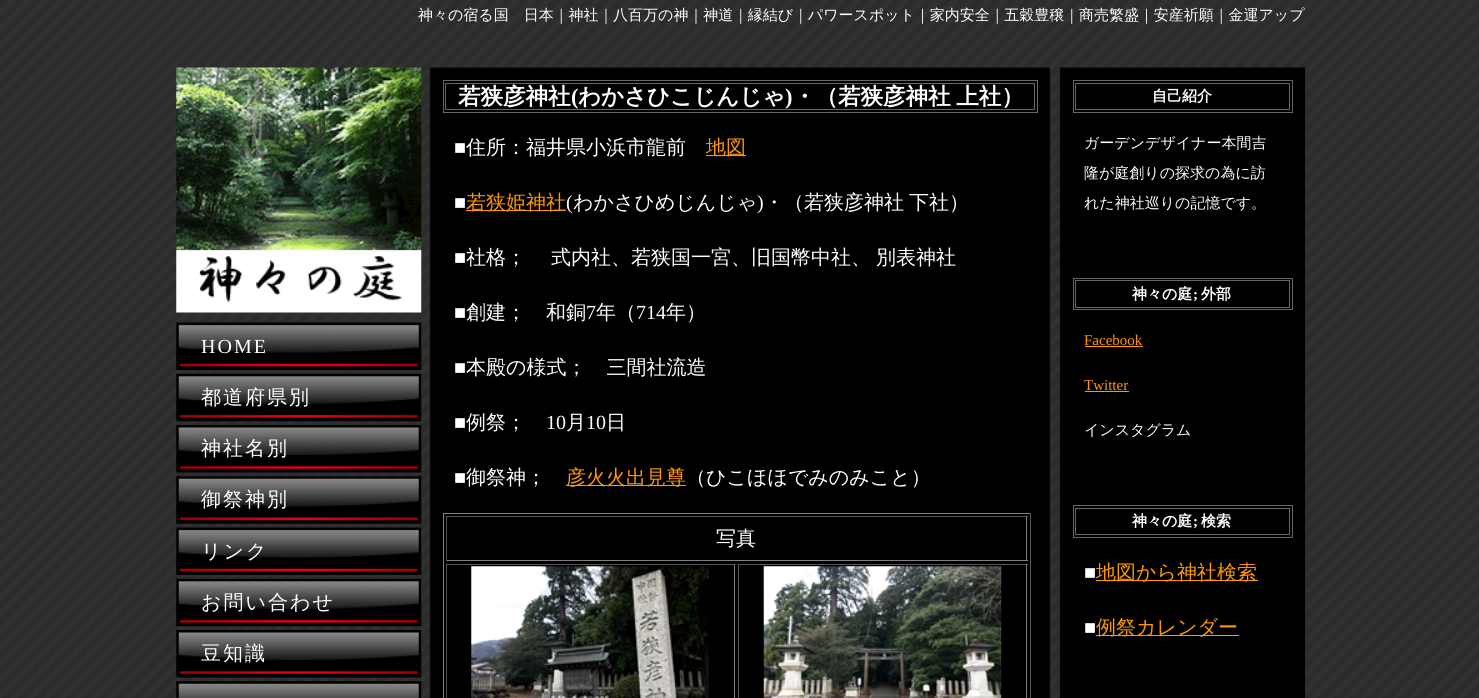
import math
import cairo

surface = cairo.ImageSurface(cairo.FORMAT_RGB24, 1479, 698)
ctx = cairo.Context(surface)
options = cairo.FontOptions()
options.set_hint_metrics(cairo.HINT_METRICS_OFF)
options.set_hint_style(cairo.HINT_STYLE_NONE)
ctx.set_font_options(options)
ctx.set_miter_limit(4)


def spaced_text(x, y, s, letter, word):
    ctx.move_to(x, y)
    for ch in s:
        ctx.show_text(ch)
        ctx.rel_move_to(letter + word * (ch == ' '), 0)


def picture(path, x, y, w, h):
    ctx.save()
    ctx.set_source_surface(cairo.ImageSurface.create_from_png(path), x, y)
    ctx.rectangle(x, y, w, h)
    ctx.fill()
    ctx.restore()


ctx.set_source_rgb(0.173, 0.173, 0.173)
ctx.paint()
picture("img1.png", 0, 0, 1479, 698)
ctx.select_font_face("WenQuanYi Zen Hei Medium")
ctx.set_font_size(15)
ctx.set_source_rgb(1, 1, 1)
ctx.move_to(418, 20)
ctx.show_text("神々の宿る国　日本｜神社｜八百万の神｜神道｜縁結び｜パワースポット｜家内安全｜五穀豊穣｜商売繁盛｜安産祈願｜金運アップ")
picture("img2.png", 429, 67, 876, 631)
picture("img3.png", 176, 67, 246, 246)
picture("img4.png", 176, 322, 246, 48)
ctx.select_font_face("Liberation Serif")
ctx.set_font_size(20)
spaced_text(201, 353, "HOME", 2, 0)
picture("img5.png", 176, 373, 246, 49)
ctx.select_font_face("WenQuanYi Zen Hei Medium")
spaced_text(201, 404, "都道府県別", 2, 0)
picture("img6.png", 176, 425, 246, 48)
spaced_text(201, 455, "神社名別", 2, 0)
picture("img7.png", 176, 476, 246, 48)
spaced_text(201, 506, "御祭神別", 2, 0)
picture("img8.png", 176, 527, 246, 48)
spaced_text(201, 558, "リンク", 2, 0)
picture("img9.png", 176, 578, 246, 49)
spaced_text(201, 609, "お問い合わせ", 2, 0)
picture("img10.png", 176, 630, 246, 48)
spaced_text(201, 660, "豆知識", 2, 0)
picture("img11.png", 176, 681, 246, 17)
ctx.rectangle(443.5, 80.5, 594, 32)
ctx.set_source_rgb(0.4, 0.4, 0.4)
ctx.set_line_width(1)
ctx.stroke()
ctx.rectangle(445.5, 83.5, 589, 26)
ctx.stroke()
ctx.select_font_face("WenQuanYi Zen Hei", cairo.FONT_SLANT_NORMAL, cairo.FONT_WEIGHT_BOLD)
ctx.set_font_size(22.5)
ctx.set_source_rgb(1, 1, 1)
ctx.move_to(458, 104)
ctx.show_text("若狭彦神社")
ctx.select_font_face("Liberation Serif", cairo.FONT_SLANT_NORMAL, cairo.FONT_WEIGHT_BOLD)
ctx.move_to(571, 104)
ctx.show_text("(")
ctx.select_font_face("WenQuanYi Zen Hei", cairo.FONT_SLANT_NORMAL, cairo.FONT_WEIGHT_BOLD)
ctx.move_to(578, 104)
ctx.show_text("わかさひこじんじゃ")
ctx.select_font_face("Liberation Serif", cairo.FONT_SLANT_NORMAL, cairo.FONT_WEIGHT_BOLD)
ctx.move_to(785, 104)
ctx.show_text(")")
ctx.select_font_face("WenQuanYi Zen Hei", cairo.FONT_SLANT_NORMAL, cairo.FONT_WEIGHT_BOLD)
spaced_text(793, 104, "・（若狭彦神社 上社）", 0, -1)
ctx.select_font_face("Liberation Serif")
ctx.set_font_size(20)
ctx.move_to(454, 154)
ctx.show_text("■")
ctx.select_font_face("WenQuanYi Zen Hei Medium")
ctx.move_to(466, 154)
ctx.show_text("住所：福井県小浜市龍前")
ctx.set_source_rgb(1, 0.6, 0)
ctx.rectangle(706, 155, 40, 1)
ctx.fill()
ctx.move_to(706, 154)
ctx.show_text("地図")
ctx.select_font_face("Liberation Serif")
ctx.set_source_rgb(1, 1, 1)
ctx.move_to(454, 209)
ctx.show_text("■")
ctx.set_source_rgb(1, 0.6, 0)
ctx.rectangle(466, 210, 100, 1)
ctx.fill()
ctx.select_font_face("WenQuanYi Zen Hei Medium")
ctx.move_to(466, 209)
ctx.show_text("若狭姫神社")
ctx.select_font_face("Liberation Serif")
ctx.set_source_rgb(1, 1, 1)
ctx.move_to(566, 209)
ctx.show_text("(")
ctx.select_font_face("WenQuanYi Zen Hei Medium")
ctx.move_to(573, 209)
ctx.show_text("わかさひめじんじゃ")
ctx.select_font_face("Liberation Serif")
ctx.move_to(757, 209)
ctx.show_text(")")
ctx.select_font_face("WenQuanYi Zen Hei Medium")
ctx.move_to(764, 209)
ctx.show_text("・（若狭彦神社")
ctx.move_to(909, 209)
ctx.show_text("下社）")
ctx.select_font_face("Liberation Serif")
ctx.move_to(454, 264)
ctx.show_text("■")
ctx.select_font_face("WenQuanYi Zen Hei Medium")
spaced_text(466, 264, "社格；　 式内社、若狭国一宮、旧国幣中社、 別表神社", 0, -1)
ctx.select_font_face("Liberation Serif")
ctx.move_to(454, 319)
ctx.show_text("■")
ctx.select_font_face("WenQuanYi Zen Hei Medium")
ctx.move_to(466, 319)
ctx.show_text("創建；　和銅")
ctx.select_font_face("Liberation Serif")
ctx.move_to(586, 319)
ctx.show_text("7")
ctx.select_font_face("WenQuanYi Zen Hei Medium")
ctx.move_to(596, 319)
ctx.show_text("年（")
ctx.select_font_face("Liberation Serif")
ctx.move_to(636, 319)
ctx.show_text("714")
ctx.select_font_face("WenQuanYi Zen Hei Medium")
ctx.move_to(666, 319)
ctx.show_text("年）")
ctx.select_font_face("Liberation Serif")
ctx.move_to(454, 374)
ctx.show_text("■")
ctx.select_font_face("WenQuanYi Zen Hei Medium")
ctx.move_to(466, 374)
ctx.show_text("本殿の様式；　三間社流造")
ctx.select_font_face("Liberation Serif")
ctx.move_to(454, 429)
ctx.show_text("■")
ctx.select_font_face("WenQuanYi Zen Hei Medium")
ctx.move_to(466, 429)
ctx.show_text("例祭；")
ctx.select_font_face("Liberation Serif")
ctx.move_to(546, 429)
ctx.show_text("10")
ctx.select_font_face("WenQuanYi Zen Hei Medium")
ctx.move_to(566, 429)
ctx.show_text("月")
ctx.select_font_face("Liberation Serif")
ctx.move_to(586, 429)
ctx.show_text("10")
ctx.select_font_face("WenQuanYi Zen Hei Medium")
ctx.move_to(606, 429)
ctx.show_text("日")
ctx.select_font_face("Liberation Serif")
ctx.move_to(454, 484)
ctx.show_text("■")
ctx.select_font_face("WenQuanYi Zen Hei Medium")
ctx.move_to(466, 484)
ctx.show_text("御祭神；")
ctx.set_source_rgb(1, 0.6, 0)
ctx.rectangle(566, 485, 120, 1)
ctx.fill()
ctx.move_to(566, 484)
ctx.show_text("彦火火出見尊")
ctx.set_source_rgb(1, 1, 1)
ctx.move_to(686, 484)
ctx.show_text("（ひこほほでみのみこと）")
ctx.set_source_rgb(0.502, 0.502, 0.502)
ctx.rectangle(443, 513, 588, 1)
ctx.fill()
ctx.set_source_rgb(0.333, 0.333, 0.333)
ctx.rectangle(1030, 513, 1, 185)
ctx.fill()
ctx.set_source_rgb(0.502, 0.502, 0.502)
ctx.rectangle(443, 513, 1, 185)
ctx.fill()
ctx.set_source_rgb(0.333, 0.333, 0.333)
ctx.rectangle(446, 516, 582, 1)
ctx.fill()
ctx.set_source_rgb(0.502, 0.502, 0.502)
ctx.rectangle(1026, 516, 1, 45)
ctx.fill()
ctx.rectangle(446, 560, 582, 1)
ctx.fill()
ctx.set_source_rgb(0.333, 0.333, 0.333)
ctx.rectangle(446, 516, 1, 45)
ctx.fill()
ctx.set_source_rgb(1, 1, 1)
ctx.move_to(716, 545)
ctx.show_text("写真")
ctx.set_source_rgb(0.333, 0.333, 0.333)
ctx.rectangle(446, 564, 289, 1)
ctx.fill()
ctx.set_source_rgb(0.502, 0.502, 0.502)
ctx.rectangle(734, 564, 1, 134)
ctx.fill()
ctx.set_source_rgb(0.333, 0.333, 0.333)
ctx.rectangle(446, 564, 1, 134)
ctx.fill()
picture("img12.png", 471, 566, 238, 132)
ctx.rectangle(738, 564, 290, 1)
ctx.fill()
ctx.set_source_rgb(0.502, 0.502, 0.502)
ctx.rectangle(1026, 564, 1, 134)
ctx.fill()
ctx.set_source_rgb(0.333, 0.333, 0.333)
ctx.rectangle(738, 564, 1, 134)
ctx.fill()
picture("img13.png", 763, 566, 239, 132)
ctx.rectangle(1073.5, 80.5, 219, 32)
ctx.set_source_rgb(0.4, 0.4, 0.4)
ctx.stroke()
ctx.rectangle(1075.5, 83.5, 214, 26)
ctx.stroke()
ctx.select_font_face("WenQuanYi Zen Hei", cairo.FONT_SLANT_NORMAL, cairo.FONT_WEIGHT_BOLD)
ctx.set_font_size(15)
ctx.set_source_rgb(1, 1, 1)
ctx.move_to(1152, 101)
ctx.show_text("自己紹介")
ctx.select_font_face("WenQuanYi Zen Hei Medium")
ctx.move_to(1084, 148)
ctx.show_text("ガーデンデザイナー本間吉")
ctx.move_to(1084, 178)
ctx.show_text("隆が庭創りの探求の為に訪")
ctx.move_to(1084, 208)
ctx.show_text("れた神社巡りの記憶です。")
ctx.rectangle(1073.5, 278.5, 219, 31)
ctx.set_source_rgb(0.4, 0.4, 0.4)
ctx.stroke()
ctx.rectangle(1075.5, 280.5, 214, 27)
ctx.stroke()
ctx.select_font_face("WenQuanYi Zen Hei", cairo.FONT_SLANT_NORMAL, cairo.FONT_WEIGHT_BOLD)
ctx.set_source_rgb(1, 1, 1)
ctx.move_to(1132, 299)
ctx.show_text("神々の庭")
ctx.select_font_face("Liberation Serif", cairo.FONT_SLANT_NORMAL, cairo.FONT_WEIGHT_BOLD)
ctx.move_to(1193, 299)
ctx.show_text(";")
ctx.select_font_face("WenQuanYi Zen Hei", cairo.FONT_SLANT_NORMAL, cairo.FONT_WEIGHT_BOLD)
ctx.move_to(1201, 299)
ctx.show_text("外部")
ctx.select_font_face("Liberation Serif")
ctx.set_source_rgb(1, 0.6, 0)
ctx.move_to(1084, 345)
ctx.show_text("Facebook")
ctx.rectangle(1085, 346, 58, 1)
ctx.fill()
ctx.move_to(1084, 390)
ctx.show_text("Twitter")
ctx.rectangle(1085, 391, 44, 1)
ctx.fill()
ctx.select_font_face("WenQuanYi Zen Hei Medium")
ctx.set_source_rgb(1, 1, 1)
ctx.move_to(1084, 435)
ctx.show_text("インスタグラム")
ctx.rectangle(1073.5, 505.5, 219, 32)
ctx.set_source_rgb(0.4, 0.4, 0.4)
ctx.stroke()
ctx.rectangle(1075.5, 508.5, 214, 26)
ctx.stroke()
ctx.select_font_face("WenQuanYi Zen Hei", cairo.FONT_SLANT_NORMAL, cairo.FONT_WEIGHT_BOLD)
ctx.set_source_rgb(1, 1, 1)
ctx.move_to(1132, 526)
ctx.show_text("神々の庭")
ctx.select_font_face("Liberation Serif", cairo.FONT_SLANT_NORMAL, cairo.FONT_WEIGHT_BOLD)
ctx.move_to(1193, 526)
ctx.show_text(";")
ctx.select_font_face("WenQuanYi Zen Hei", cairo.FONT_SLANT_NORMAL, cairo.FONT_WEIGHT_BOLD)
ctx.move_to(1201, 526)
ctx.show_text("検索")
ctx.select_font_face("Liberation Serif")
ctx.set_font_size(20)
ctx.move_to(1084, 579)
ctx.show_text("■")
ctx.set_source_rgb(1, 0.6, 0)
ctx.rectangle(1096, 580, 162, 1)
ctx.fill()
ctx.select_font_face("WenQuanYi Zen Hei Medium")
ctx.move_to(1096, 579)
ctx.show_text("地図から神社検索")
ctx.select_font_face("Liberation Serif")
ctx.set_source_rgb(1, 1, 1)
ctx.move_to(1084, 634)
ctx.show_text("■")
ctx.set_source_rgb(1, 0.6, 0)
ctx.rectangle(1096, 635, 143, 1)
ctx.fill()
ctx.select_font_face("WenQuanYi Zen Hei Medium")
ctx.move_to(1096, 634)
ctx.show_text("例祭カレンダー")
surface.write_to_png("page.png")
